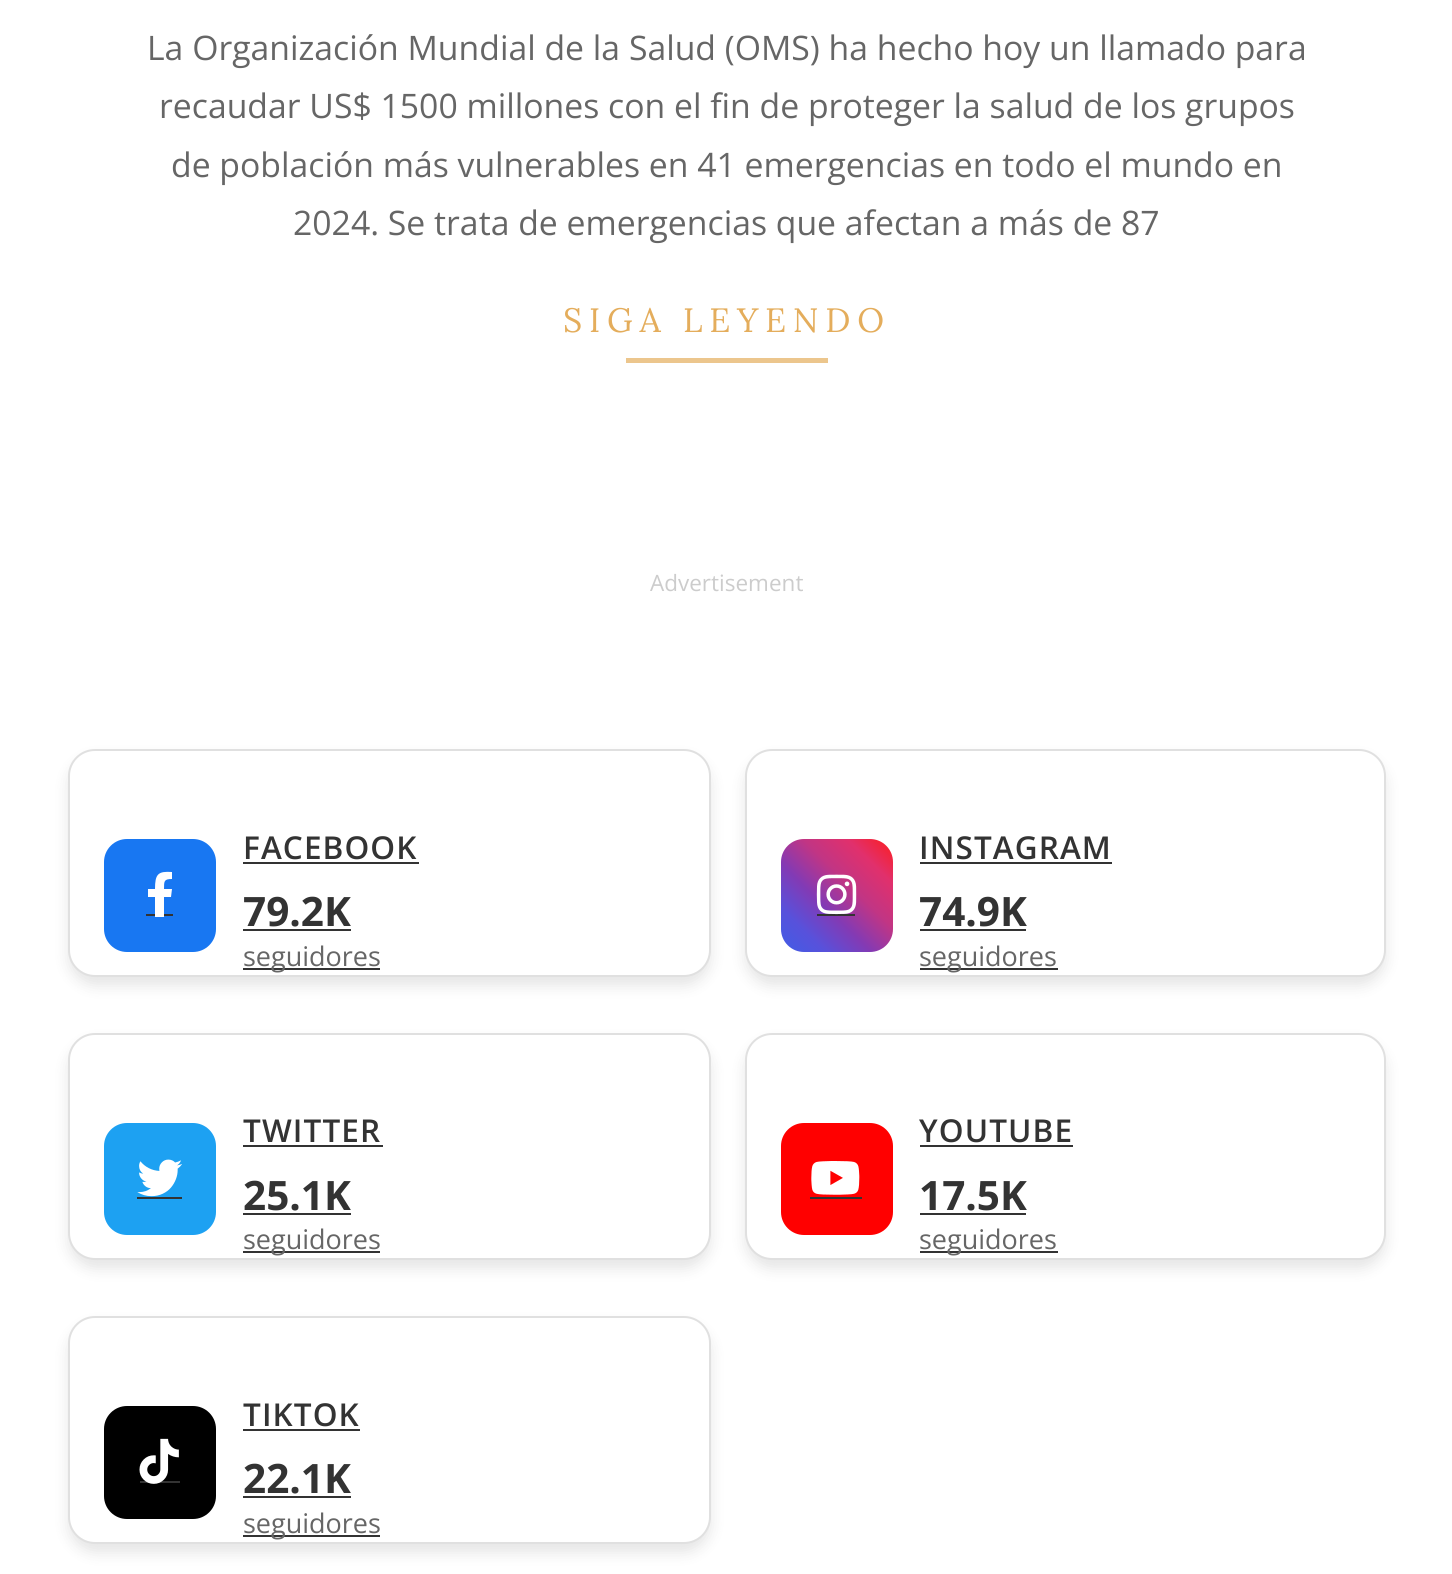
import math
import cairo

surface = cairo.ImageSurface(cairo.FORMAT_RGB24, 1452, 1574)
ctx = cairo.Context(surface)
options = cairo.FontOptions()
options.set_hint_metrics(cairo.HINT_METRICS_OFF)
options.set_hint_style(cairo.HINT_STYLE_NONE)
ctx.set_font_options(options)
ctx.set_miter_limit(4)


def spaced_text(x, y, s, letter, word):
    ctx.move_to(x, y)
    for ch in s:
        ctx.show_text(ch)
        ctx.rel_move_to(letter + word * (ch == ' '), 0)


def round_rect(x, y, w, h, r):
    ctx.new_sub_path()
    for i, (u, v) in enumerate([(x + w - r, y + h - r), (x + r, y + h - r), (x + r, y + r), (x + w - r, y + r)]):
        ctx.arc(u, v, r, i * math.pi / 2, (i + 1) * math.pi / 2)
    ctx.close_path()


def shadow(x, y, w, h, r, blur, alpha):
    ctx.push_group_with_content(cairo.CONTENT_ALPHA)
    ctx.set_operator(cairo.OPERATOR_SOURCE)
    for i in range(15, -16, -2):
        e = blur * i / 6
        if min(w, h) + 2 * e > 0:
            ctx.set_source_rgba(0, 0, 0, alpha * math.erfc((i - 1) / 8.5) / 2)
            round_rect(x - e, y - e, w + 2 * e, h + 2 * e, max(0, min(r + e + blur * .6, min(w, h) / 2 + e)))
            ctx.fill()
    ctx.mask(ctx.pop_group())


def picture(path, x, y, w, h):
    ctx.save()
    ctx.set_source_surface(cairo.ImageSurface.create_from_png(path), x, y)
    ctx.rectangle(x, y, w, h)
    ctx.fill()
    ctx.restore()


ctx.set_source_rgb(1, 1, 1)
ctx.paint()
ctx.select_font_face("Open Sans")
ctx.set_font_size(33.75)
ctx.set_source_rgb(0.4, 0.4, 0.4)
ctx.move_to(147, 60)
ctx.show_text("La Organización Mundial de la Salud (OMS) ha hecho hoy un llamado para")
ctx.move_to(159, 118)
ctx.show_text("recaudar US$ 1500 millones con el fin de proteger la salud de los grupos")
ctx.move_to(171, 177)
ctx.show_text("de población más vulnerables en 41 emergencias en todo el mundo en")
ctx.move_to(293, 235)
ctx.show_text("2024. Se trata de emergencias que afectan a más de 87")
ctx.select_font_face("Lora")
ctx.set_source_rgb(0.894, 0.678, 0.361)
spaced_text(563, 332, "SIGA LEYENDO", 6.75, 0)
ctx.set_source_rgb(0.925, 0.776, 0.553)
ctx.rectangle(626, 358, 202, 5)
ctx.fill()
ctx.select_font_face("Open Sans")
ctx.set_font_size(22.5)
ctx.set_source_rgb(0.8, 0.8, 0.8)
ctx.move_to(650, 591)
ctx.show_text("Advertisement")
ctx.set_source_rgb(0, 0, 0)
shadow(68, 758, 643, 228, 27, 7, 0.1)
ctx.set_source_rgb(1, 1, 1)
round_rect(69, 750, 641, 226, 26)
ctx.fill_preserve()
ctx.set_source_rgb(0.878, 0.878, 0.878)
ctx.stroke()
ctx.set_source_rgb(0.094, 0.467, 0.949)
round_rect(104, 839, 112, 113, 23)
ctx.fill()
ctx.set_source_rgb(0.2, 0.2, 0.2)
ctx.rectangle(146, 914, 27, 2)
ctx.fill()
ctx.set_source_rgb(1, 1, 1)
ctx.new_path()
ctx.move_to(171, 897)
ctx.line_to(164, 897)
ctx.line_to(164, 917)
ctx.line_to(155, 917)
ctx.line_to(155, 897)
ctx.line_to(148, 897)
ctx.line_to(148, 889)
ctx.line_to(155, 889)
ctx.curve_to(155, 874, 158, 871, 172, 872)
ctx.line_to(172, 879)
ctx.curve_to(164, 879, 164, 881, 164, 889)
ctx.line_to(172, 889)
ctx.close_path()
ctx.fill()
ctx.select_font_face("Open Sans SemiBold")
ctx.set_font_size(31.5)
ctx.set_source_rgb(0.2, 0.2, 0.2)
spaced_text(243, 859, "FACEBOOK", 1.1, 0)
ctx.rectangle(243, 862, 176, 2)
ctx.fill()
ctx.select_font_face("Open Sans", cairo.FONT_SLANT_NORMAL, cairo.FONT_WEIGHT_BOLD)
ctx.set_font_size(40.5)
ctx.move_to(243, 926)
ctx.show_text("79.2K")
ctx.rectangle(243, 929, 108, 2)
ctx.fill()
ctx.rectangle(243, 968, 137, 2)
ctx.fill()
ctx.select_font_face("Open Sans")
ctx.set_font_size(27)
ctx.set_source_rgb(0.4, 0.4, 0.4)
ctx.move_to(243, 966)
ctx.show_text("seguidores")
ctx.set_source_rgb(0, 0, 0)
shadow(745, 758, 641, 228, 27, 7, 0.1)
ctx.set_source_rgb(1, 1, 1)
round_rect(746, 750, 639, 226, 26)
ctx.fill_preserve()
ctx.set_source_rgb(0.878, 0.878, 0.878)
ctx.stroke()
gradient = cairo.LinearGradient(781, 952, 893, 839)
gradient.add_color_stop_rgba(0, 0.251, 0.365, 0.902, 1)
gradient.add_color_stop_rgba(0.2, 0.345, 0.318, 0.859, 1)
gradient.add_color_stop_rgba(0.4, 0.514, 0.227, 0.706, 1)
gradient.add_color_stop_rgba(0.6, 0.757, 0.208, 0.518, 1)
gradient.add_color_stop_rgba(0.8, 0.882, 0.188, 0.424, 1)
gradient.add_color_stop_rgba(1, 0.992, 0.114, 0.114, 1)
ctx.set_source(gradient)
round_rect(781, 839, 112, 113, 23)
ctx.fill()
ctx.set_source_rgb(0.2, 0.2, 0.2)
ctx.rectangle(817, 914, 38, 2)
ctx.fill()
picture("img1.png", 816, 874, 41, 41)
ctx.select_font_face("Open Sans SemiBold")
ctx.set_font_size(31.5)
spaced_text(919, 859, "INSTAGRAM", 1.1, 0)
ctx.rectangle(920, 862, 192, 2)
ctx.fill()
ctx.select_font_face("Open Sans", cairo.FONT_SLANT_NORMAL, cairo.FONT_WEIGHT_BOLD)
ctx.set_font_size(40.5)
ctx.move_to(919, 926)
ctx.show_text("74.9K")
ctx.rectangle(920, 929, 106, 2)
ctx.fill()
ctx.rectangle(920, 968, 138, 2)
ctx.fill()
ctx.select_font_face("Open Sans")
ctx.set_font_size(27)
ctx.set_source_rgb(0.4, 0.4, 0.4)
ctx.move_to(919, 966)
ctx.show_text("seguidores")
ctx.set_source_rgb(0, 0, 0)
shadow(68, 1042, 643, 227, 27, 7, 0.1)
ctx.set_source_rgb(1, 1, 1)
round_rect(69, 1034, 641, 225, 26)
ctx.fill_preserve()
ctx.set_source_rgb(0.878, 0.878, 0.878)
ctx.stroke()
ctx.set_source_rgb(0.114, 0.631, 0.949)
round_rect(104, 1123, 112, 112, 23)
ctx.fill()
picture("img2.png", 137, 1159, 45, 38)
ctx.set_source_rgb(0.2, 0.2, 0.2)
ctx.rectangle(137, 1197, 45, 2)
ctx.fill()
ctx.select_font_face("Open Sans SemiBold")
ctx.set_font_size(31.5)
spaced_text(243, 1142, "TWITTER", 1.1, 0)
ctx.rectangle(243, 1145, 140, 2)
ctx.fill()
ctx.select_font_face("Open Sans", cairo.FONT_SLANT_NORMAL, cairo.FONT_WEIGHT_BOLD)
ctx.set_font_size(40.5)
ctx.move_to(243, 1210)
ctx.show_text("25.1K")
ctx.rectangle(243, 1213, 108, 2)
ctx.fill()
ctx.rectangle(243, 1251, 137, 2)
ctx.fill()
ctx.select_font_face("Open Sans")
ctx.set_font_size(27)
ctx.set_source_rgb(0.4, 0.4, 0.4)
ctx.move_to(243, 1249)
ctx.show_text("seguidores")
ctx.set_source_rgb(0, 0, 0)
shadow(745, 1042, 641, 227, 27, 7, 0.1)
ctx.set_source_rgb(1, 1, 1)
round_rect(746, 1034, 639, 225, 26)
ctx.fill_preserve()
ctx.set_source_rgb(0.878, 0.878, 0.878)
ctx.stroke()
ctx.set_source_rgb(1, 0, 0)
round_rect(781, 1123, 112, 112, 23)
ctx.fill()
picture("img3.png", 811, 1161, 49, 34)
ctx.set_source_rgb(0.2, 0.2, 0.2)
ctx.rectangle(810, 1197, 52, 2)
ctx.fill()
ctx.select_font_face("Open Sans SemiBold")
ctx.set_font_size(31.5)
spaced_text(919, 1142, "YOUTUBE", 1.1, 0)
ctx.rectangle(920, 1145, 153, 2)
ctx.fill()
ctx.select_font_face("Open Sans", cairo.FONT_SLANT_NORMAL, cairo.FONT_WEIGHT_BOLD)
ctx.set_font_size(40.5)
ctx.move_to(919, 1210)
ctx.show_text("17.5K")
ctx.rectangle(920, 1213, 106, 2)
ctx.fill()
ctx.rectangle(920, 1251, 138, 2)
ctx.fill()
ctx.select_font_face("Open Sans")
ctx.set_font_size(27)
ctx.set_source_rgb(0.4, 0.4, 0.4)
ctx.move_to(919, 1249)
ctx.show_text("seguidores")
ctx.set_source_rgb(0, 0, 0)
shadow(68, 1325, 643, 228, 27, 7, 0.1)
ctx.set_source_rgb(1, 1, 1)
round_rect(69, 1317, 641, 226, 26)
ctx.fill_preserve()
ctx.set_source_rgb(0.878, 0.878, 0.878)
ctx.stroke()
ctx.set_source_rgb(0, 0, 0)
round_rect(104, 1406, 112, 113, 23)
ctx.fill()
ctx.set_source_rgb(0.2, 0.2, 0.2)
ctx.rectangle(140, 1481, 40, 2)
ctx.fill()
picture("img4.png", 139, 1438, 40, 46)
ctx.select_font_face("Open Sans SemiBold")
ctx.set_font_size(31.5)
spaced_text(243, 1426, "TIKTOK", 1.1, 0)
ctx.rectangle(243, 1429, 117, 2)
ctx.fill()
ctx.select_font_face("Open Sans", cairo.FONT_SLANT_NORMAL, cairo.FONT_WEIGHT_BOLD)
ctx.set_font_size(40.5)
ctx.move_to(243, 1493)
ctx.show_text("22.1K")
ctx.rectangle(243, 1496, 108, 2)
ctx.fill()
ctx.rectangle(243, 1535, 137, 2)
ctx.fill()
ctx.select_font_face("Open Sans")
ctx.set_font_size(27)
ctx.set_source_rgb(0.4, 0.4, 0.4)
ctx.move_to(243, 1533)
ctx.show_text("seguidores")
surface.write_to_png("page.png")
